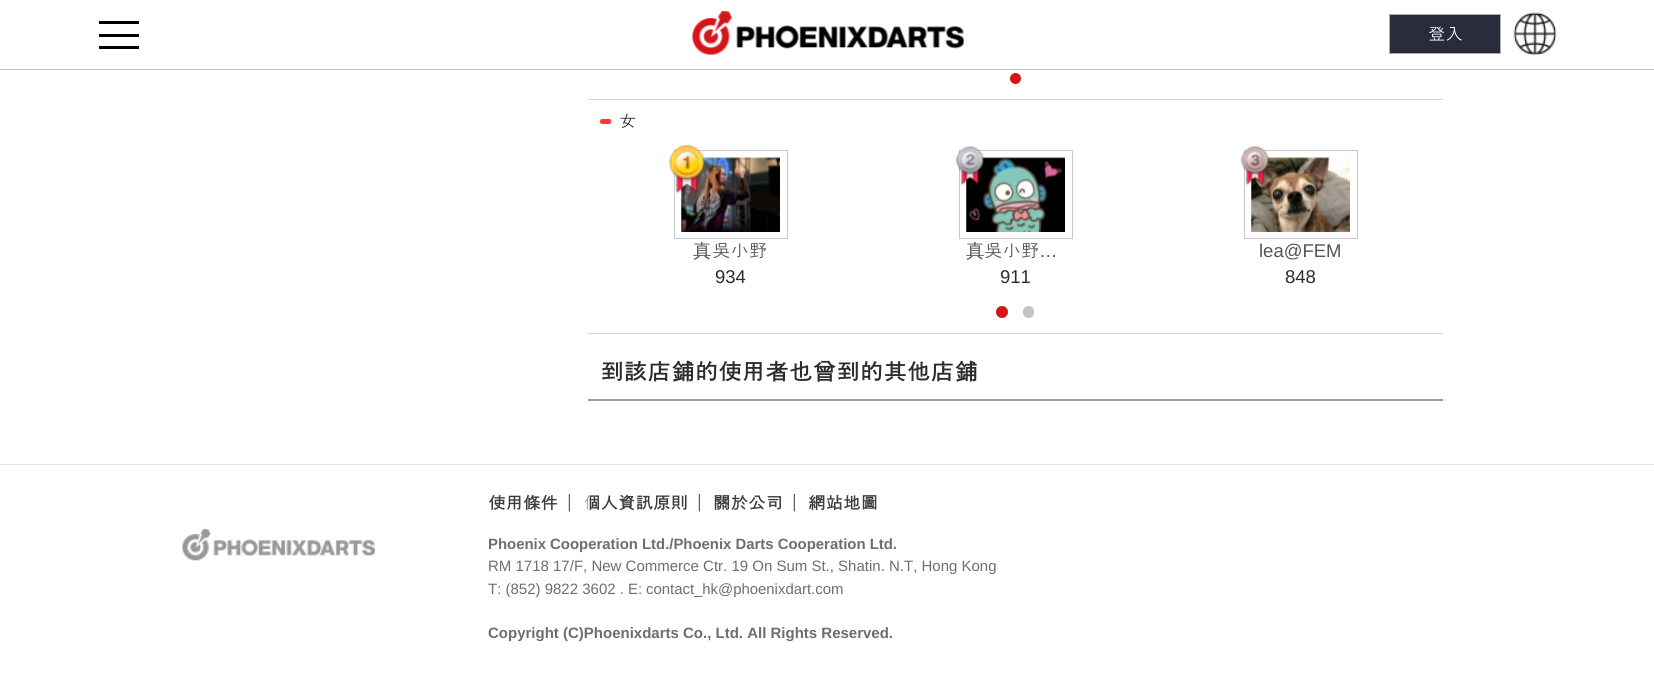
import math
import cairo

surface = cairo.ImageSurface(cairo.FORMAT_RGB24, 1654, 683)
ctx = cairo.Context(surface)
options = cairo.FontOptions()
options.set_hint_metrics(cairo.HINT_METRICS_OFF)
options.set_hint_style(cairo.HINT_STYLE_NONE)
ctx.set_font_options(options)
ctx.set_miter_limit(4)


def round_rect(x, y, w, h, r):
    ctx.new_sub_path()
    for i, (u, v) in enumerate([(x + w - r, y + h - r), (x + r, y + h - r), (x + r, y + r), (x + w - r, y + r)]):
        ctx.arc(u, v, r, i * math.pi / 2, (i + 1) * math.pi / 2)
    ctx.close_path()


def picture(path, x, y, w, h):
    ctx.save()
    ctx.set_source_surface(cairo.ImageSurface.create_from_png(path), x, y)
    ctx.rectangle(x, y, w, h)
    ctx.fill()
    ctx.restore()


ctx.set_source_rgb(1, 1, 1)
ctx.paint()
ctx.set_source_rgb(0.761, 0.761, 0.761)
ctx.rectangle(0, 69, 1654, 1)
ctx.fill()
ctx.set_source_rgb(0, 0, 0)
ctx.rectangle(99, 34, 40, 3)
ctx.fill()
ctx.rectangle(99, 21, 40, 3)
ctx.fill()
ctx.rectangle(99, 46, 40, 3)
ctx.fill()
picture("img1.png", 692, 10, 272, 46)
ctx.set_source_rgb(0.165, 0.173, 0.243)
ctx.rectangle(1389.5, 14.5, 111, 39)
ctx.fill_preserve()
ctx.set_source_rgb(0.686, 0.686, 0.686)
ctx.set_line_width(1)
ctx.stroke()
ctx.select_font_face("Dotum")
ctx.set_font_size(17.5)
ctx.set_source_rgb(1, 1, 1)
ctx.move_to(1428, 40)
ctx.show_text("登入")
picture("img2.png", 1513, 12, 44, 43)
ctx.set_source_rgb(0.839, 0.839, 0.839)
ctx.rectangle(588, 99, 855, 1)
ctx.fill()
ctx.set_source_rgb(0.839, 0.082, 0.094)
ctx.arc(1015.5, 78.5, 5.5, 0, 2 * math.pi)
ctx.fill()
ctx.set_source_rgb(0.839, 0.839, 0.839)
ctx.rectangle(588, 333, 855, 1)
ctx.fill()
picture("img3.png", 600, 119, 12, 5)
ctx.set_source_rgb(0.173, 0.173, 0.173)
ctx.move_to(619, 127)
ctx.show_text("女")
ctx.rectangle(674.5, 150.5, 113, 88)
ctx.set_source_rgb(0.776, 0.792, 0.8)
ctx.stroke()
picture("img5.png", 681, 157, 99, 75)
picture("img4.png", 668, 145, 37, 48)
ctx.select_font_face("WenQuanYi Zen Hei Medium")
ctx.set_font_size(18.5)
ctx.set_source_rgb(0.333, 0.325, 0.325)
ctx.move_to(693, 257)
ctx.show_text("真")
ctx.select_font_face("Dotum")
ctx.move_to(712, 257)
ctx.show_text("吳小野")
ctx.select_font_face("Liberation Sans")
ctx.set_source_rgb(0.173, 0.173, 0.173)
ctx.move_to(715, 283)
ctx.show_text("934")
ctx.rectangle(959.5, 150.5, 113, 88)
ctx.set_source_rgb(0.776, 0.792, 0.8)
ctx.stroke()
picture("img7.png", 966, 157, 99, 75)
picture("img6.png", 955, 146, 30, 40)
ctx.select_font_face("WenQuanYi Zen Hei Medium")
ctx.set_source_rgb(0.333, 0.325, 0.325)
ctx.move_to(966, 257)
ctx.show_text("真")
ctx.select_font_face("Dotum")
ctx.move_to(984, 257)
ctx.show_text("吳小野")
ctx.select_font_face("Liberation Sans")
ctx.move_to(1039, 257)
ctx.show_text("…")
ctx.set_source_rgb(0.173, 0.173, 0.173)
ctx.move_to(1000, 283)
ctx.show_text("911")
ctx.rectangle(1244.5, 150.5, 113, 88)
ctx.set_source_rgb(0.776, 0.792, 0.8)
ctx.stroke()
picture("img9.png", 1251, 157, 99, 75)
picture("img8.png", 1240, 146, 30, 40)
ctx.set_source_rgb(0.333, 0.325, 0.325)
ctx.move_to(1259, 257)
ctx.show_text("lea@FEM")
ctx.set_source_rgb(0.173, 0.173, 0.173)
ctx.move_to(1285, 283)
ctx.show_text("848")
ctx.set_source_rgb(0.839, 0.082, 0.094)
ctx.new_path()
ctx.arc(1002, 312, 6, 0, 2 * math.pi)
ctx.fill()
ctx.set_source_rgb(0.769, 0.769, 0.769)
round_rect(1023, 306, 11, 12, 5.5)
ctx.fill()
ctx.set_source_rgb(0.616, 0.616, 0.616)
ctx.rectangle(588, 399, 855, 2)
ctx.fill()
ctx.select_font_face("Dotum", cairo.FONT_SLANT_NORMAL, cairo.FONT_WEIGHT_BOLD)
ctx.set_font_size(23.6)
ctx.set_source_rgb(0.173, 0.173, 0.173)
ctx.move_to(600, 380)
ctx.show_text("到該店鋪的使用者也曾到的其他店鋪")
ctx.set_source_rgb(0.898, 0.898, 0.898)
ctx.rectangle(0, 464, 1654, 1)
ctx.fill()
picture("img10.png", 182, 528, 193, 33)
picture("img11.png", 568, 494, 2, 18)
ctx.set_font_size(17.5)
ctx.set_source_rgb(0.235, 0.235, 0.235)
ctx.move_to(488, 509)
ctx.show_text("使用條件")
picture("img11.png", 698, 494, 2, 18)
ctx.move_to(583, 509)
ctx.show_text("個人資訊原則")
picture("img11.png", 793, 494, 2, 18)
ctx.move_to(713, 509)
ctx.show_text("關於公司")
ctx.move_to(808, 509)
ctx.show_text("網站地圖")
ctx.select_font_face("Liberation Sans", cairo.FONT_SLANT_NORMAL, cairo.FONT_WEIGHT_BOLD)
ctx.set_font_size(14.9)
ctx.set_source_rgb(0.431, 0.431, 0.431)
ctx.move_to(488, 549)
ctx.show_text("Phoenix Cooperation Ltd./Phoenix Darts Cooperation Ltd.")
ctx.select_font_face("Liberation Sans")
ctx.set_font_size(15)
ctx.move_to(488, 571)
ctx.show_text("RM 1718 17/F, New Commerce Ctr. 19 On Sum St., Shatin. N.T, Hong Kong")
ctx.move_to(488, 594)
ctx.show_text("T: (852) 9822 3602 . E:")
ctx.set_font_size(14.9)
ctx.move_to(646, 594)
ctx.show_text("contact_hk@phoenixdart.com")
ctx.select_font_face("Liberation Sans", cairo.FONT_SLANT_NORMAL, cairo.FONT_WEIGHT_BOLD)
ctx.set_font_size(15)
ctx.move_to(488, 638)
ctx.show_text("Copyright (C)Phoenixdarts Co., Ltd. All Rights Reserved.")
surface.write_to_png("page.png")
